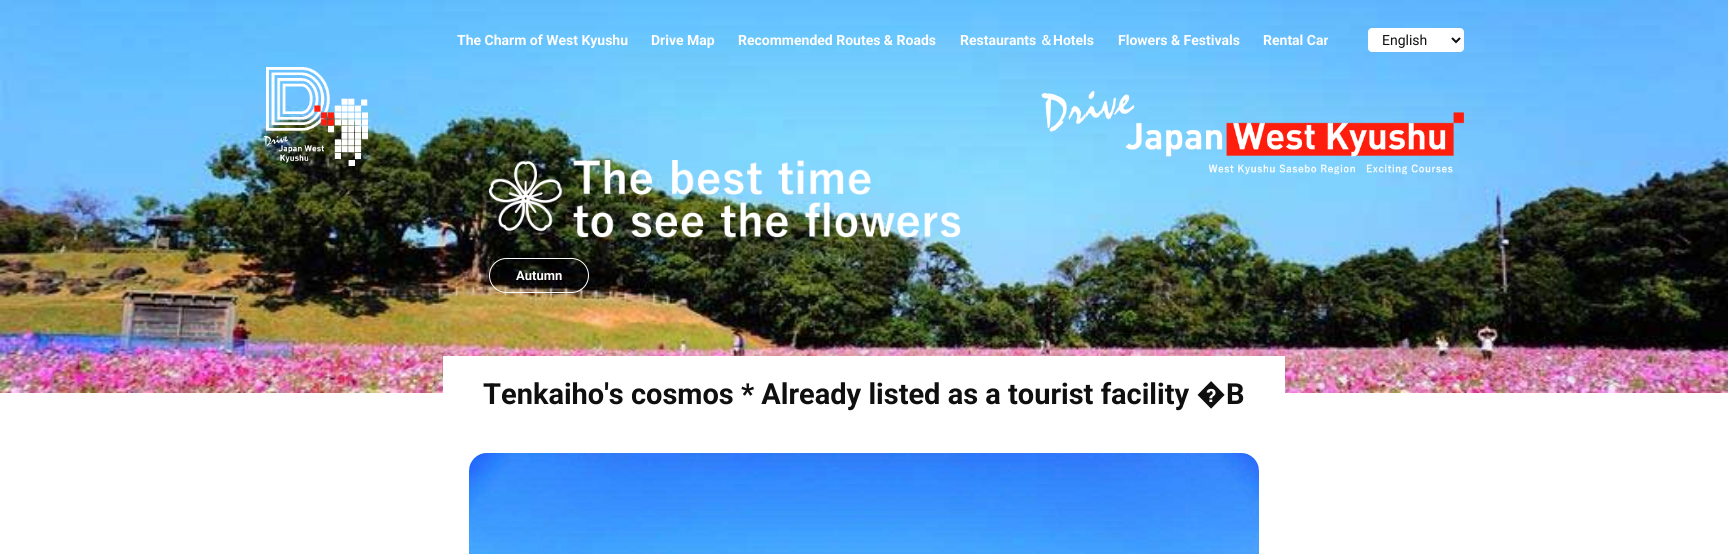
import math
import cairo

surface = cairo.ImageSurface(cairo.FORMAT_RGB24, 1728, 554)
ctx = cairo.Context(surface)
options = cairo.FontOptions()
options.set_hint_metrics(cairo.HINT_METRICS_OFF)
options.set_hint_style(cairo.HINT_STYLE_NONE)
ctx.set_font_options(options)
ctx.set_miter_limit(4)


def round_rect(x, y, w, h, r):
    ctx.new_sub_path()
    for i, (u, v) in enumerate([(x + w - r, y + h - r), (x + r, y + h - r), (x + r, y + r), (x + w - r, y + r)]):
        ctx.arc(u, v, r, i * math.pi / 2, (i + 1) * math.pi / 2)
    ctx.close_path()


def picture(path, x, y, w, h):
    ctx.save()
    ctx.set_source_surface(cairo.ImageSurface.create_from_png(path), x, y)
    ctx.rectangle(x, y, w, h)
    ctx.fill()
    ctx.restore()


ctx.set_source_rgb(1, 1, 1)
ctx.paint()
picture("img3.png", 0, 0, 1728, 393)
ctx.select_font_face("Roboto", cairo.FONT_SLANT_NORMAL, cairo.FONT_WEIGHT_BOLD)
ctx.set_font_size(14)
ctx.set_source_rgb(1, 1, 1)
ctx.move_to(457, 45)
ctx.show_text("The Charm of West Kyushu")
ctx.move_to(651, 45)
ctx.show_text("Drive Map")
ctx.move_to(738, 45)
ctx.show_text("Recommended Routes & Roads")
ctx.move_to(960, 45)
ctx.show_text("Restaurants")
ctx.select_font_face("WenQuanYi Zen Hei", cairo.FONT_SLANT_NORMAL, cairo.FONT_WEIGHT_BOLD)
ctx.move_to(1039, 45)
ctx.show_text("＆")
ctx.select_font_face("Roboto", cairo.FONT_SLANT_NORMAL, cairo.FONT_WEIGHT_BOLD)
ctx.move_to(1053, 45)
ctx.show_text("Hotels")
ctx.move_to(1118, 45)
ctx.show_text("Flowers & Festivals")
ctx.move_to(1263, 45)
ctx.show_text("Rental Car")
round_rect(1368, 28, 96, 24, 4)
ctx.fill()
ctx.new_path()
ctx.move_to(1452, 38)
ctx.line_to(1456, 42)
ctx.line_to(1460, 38)
ctx.set_source_rgb(0.059, 0.059, 0.059)
ctx.stroke()
ctx.select_font_face("Roboto")
ctx.move_to(1382, 45)
ctx.show_text("English")
picture("img1.png", 264, 67, 104, 99)
picture("img2.png", 1041, 91, 423, 84)
picture("img4.png", 489, 160, 472, 78)
round_rect(489.5, 258.5, 99, 34, 17)
ctx.set_source_rgb(1, 1, 1)
ctx.set_line_width(1)
ctx.stroke()
ctx.select_font_face("Roboto", cairo.FONT_SLANT_NORMAL, cairo.FONT_WEIGHT_BOLD)
ctx.set_font_size(13)
ctx.move_to(516, 280)
ctx.show_text("Autumn")
ctx.rectangle(443, 356, 842, 37)
ctx.fill()
ctx.set_font_size(29)
ctx.set_source_rgb(0.059, 0.059, 0.059)
ctx.move_to(483, 404)
ctx.show_text("Tenkaiho's cosmos * Already listed as a tourist facility �B")
picture("img5.png", 469, 453, 790, 101)
surface.write_to_png("page.png")
